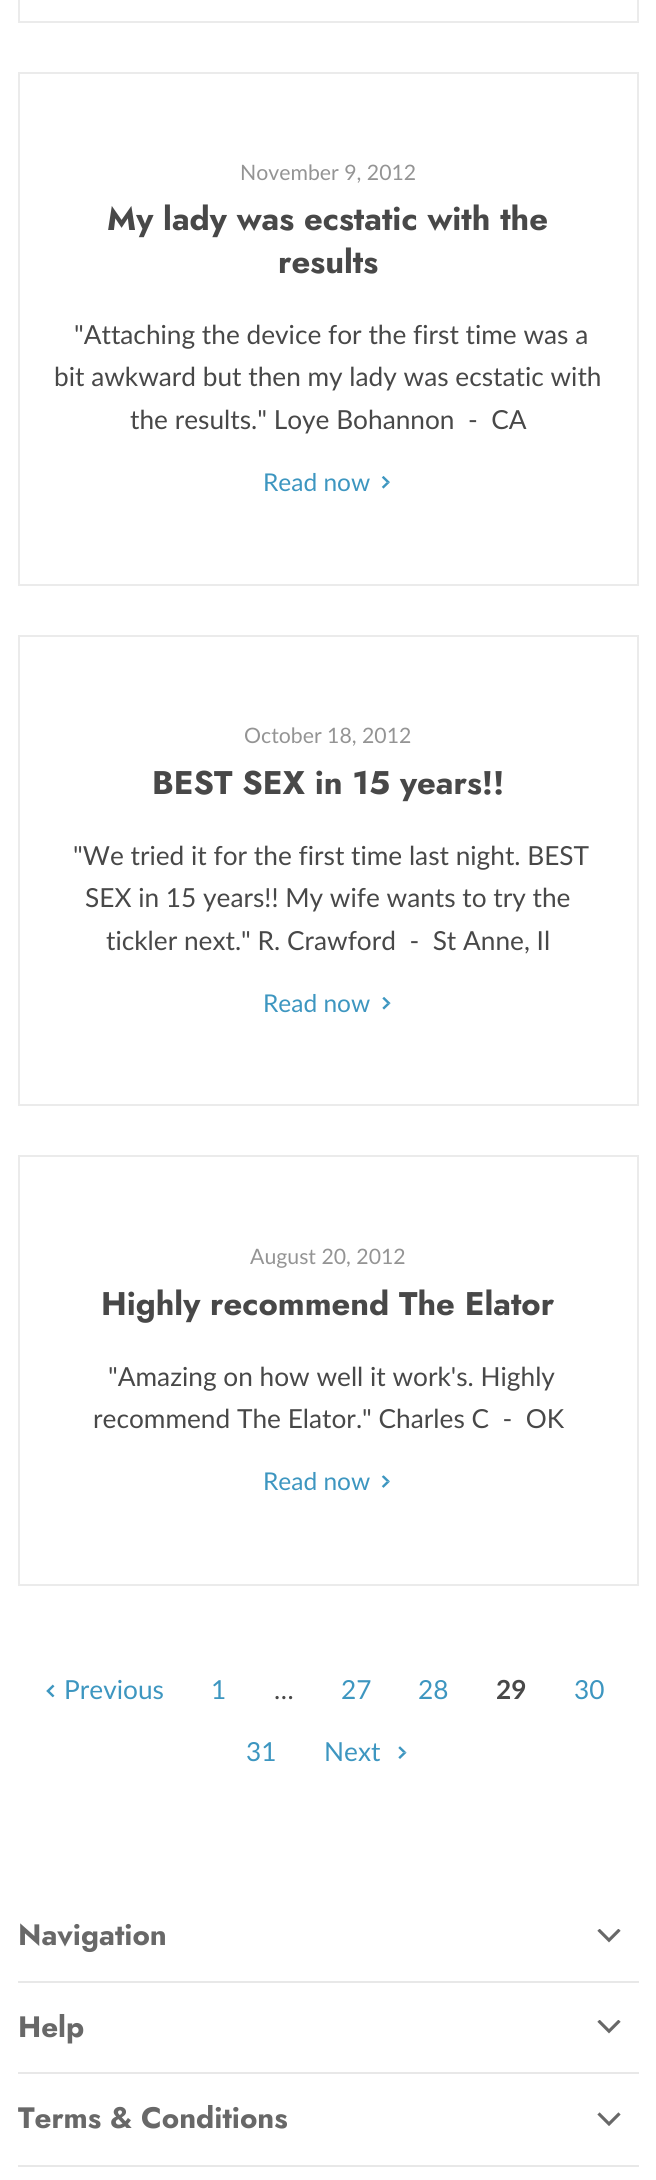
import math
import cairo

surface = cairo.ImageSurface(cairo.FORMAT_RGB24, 656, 2180)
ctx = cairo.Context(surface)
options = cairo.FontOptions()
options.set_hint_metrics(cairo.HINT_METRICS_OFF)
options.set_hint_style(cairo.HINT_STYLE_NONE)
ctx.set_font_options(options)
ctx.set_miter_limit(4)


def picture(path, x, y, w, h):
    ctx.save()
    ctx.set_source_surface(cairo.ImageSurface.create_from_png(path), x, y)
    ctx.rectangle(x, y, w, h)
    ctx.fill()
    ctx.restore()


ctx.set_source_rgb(1, 1, 1)
ctx.paint()
ctx.rectangle(19, -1, 619, 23)
ctx.set_source_rgba(0.498, 0.498, 0.498, 0.16)
ctx.stroke()
ctx.rectangle(19, 73, 619, 512)
ctx.set_source_rgb(0.918, 0.918, 0.918)
ctx.stroke()
ctx.select_font_face("Lato")
ctx.set_font_size(21.25)
ctx.set_source_rgb(0.58, 0.58, 0.58)
ctx.move_to(240, 180)
ctx.show_text("November 9, 2012")
ctx.select_font_face("Jost", cairo.FONT_SLANT_NORMAL, cairo.FONT_WEIGHT_BOLD)
ctx.set_font_size(32.75)
ctx.set_source_rgb(0.282, 0.282, 0.282)
ctx.move_to(107, 230)
ctx.show_text("My lady was ecstatic with the")
ctx.move_to(278, 273)
ctx.show_text("results")
ctx.select_font_face("Lato")
ctx.set_font_size(26.25)
ctx.move_to(74, 344)
ctx.show_text("\"Attaching the device for the first time was a")
ctx.move_to(54, 386)
ctx.show_text("bit awkward but then my lady was ecstatic with")
ctx.move_to(130, 429)
ctx.show_text("the results.\" Loye Bohannon  -  CA")
ctx.set_font_size(24.5)
ctx.set_source_rgb(0.239, 0.588, 0.753)
ctx.move_to(263, 491)
ctx.show_text("Read now")
picture("img1.png", 381, 476, 9, 13)
ctx.rectangle(19, 636, 619, 469)
ctx.set_source_rgb(0.918, 0.918, 0.918)
ctx.stroke()
ctx.set_font_size(21.25)
ctx.set_source_rgb(0.58, 0.58, 0.58)
ctx.move_to(244, 743)
ctx.show_text("October 18, 2012")
ctx.select_font_face("Jost", cairo.FONT_SLANT_NORMAL, cairo.FONT_WEIGHT_BOLD)
ctx.set_font_size(32.75)
ctx.set_source_rgb(0.282, 0.282, 0.282)
ctx.move_to(152, 794)
ctx.show_text("BEST SEX in 15 years!!")
ctx.select_font_face("Lato")
ctx.set_font_size(26.25)
ctx.move_to(73, 865)
ctx.show_text("\"We tried it for the first time last night. BEST")
ctx.move_to(85, 907)
ctx.show_text("SEX in 15 years!! My wife wants to try the")
ctx.move_to(106, 950)
ctx.show_text("tickler next.\" R. Crawford  -  St Anne, Il")
ctx.set_font_size(24.5)
ctx.set_source_rgb(0.239, 0.588, 0.753)
ctx.move_to(263, 1012)
ctx.show_text("Read now")
picture("img2.png", 382, 997, 9, 13)
ctx.rectangle(19, 1156, 619, 429)
ctx.set_source_rgba(0.498, 0.498, 0.498, 0.16)
ctx.stroke()
ctx.set_font_size(21.25)
ctx.set_source_rgb(0.58, 0.58, 0.58)
ctx.move_to(250, 1264)
ctx.show_text("August 20, 2012")
ctx.select_font_face("Jost", cairo.FONT_SLANT_NORMAL, cairo.FONT_WEIGHT_BOLD)
ctx.set_font_size(32.75)
ctx.set_source_rgb(0.282, 0.282, 0.282)
ctx.move_to(101, 1315)
ctx.show_text("Highly recommend The Elator")
ctx.select_font_face("Lato")
ctx.set_font_size(26.25)
ctx.move_to(108, 1386)
ctx.show_text("\"Amazing on how well it work's. Highly")
ctx.move_to(93, 1428)
ctx.show_text("recommend The Elator.\" Charles C  -  OK")
ctx.set_font_size(24.5)
ctx.set_source_rgb(0.239, 0.588, 0.753)
ctx.move_to(263, 1490)
ctx.show_text("Read now")
picture("img3.png", 381, 1475, 9, 13)
picture("img4.png", 46, 1684, 9, 14)
ctx.set_font_size(26.25)
ctx.move_to(64, 1699)
ctx.show_text("Previous")
ctx.move_to(211, 1699)
ctx.show_text("1")
ctx.set_source_rgb(0.282, 0.282, 0.282)
ctx.move_to(274, 1699)
ctx.show_text("…")
ctx.set_source_rgb(0.239, 0.588, 0.753)
ctx.move_to(341, 1699)
ctx.show_text("27")
ctx.move_to(418, 1699)
ctx.show_text("28")
ctx.select_font_face("Lato", cairo.FONT_SLANT_NORMAL, cairo.FONT_WEIGHT_BOLD)
ctx.set_source_rgb(0.282, 0.282, 0.282)
ctx.move_to(496, 1699)
ctx.show_text("29")
ctx.select_font_face("Lato")
ctx.set_source_rgb(0.239, 0.588, 0.753)
ctx.move_to(574, 1699)
ctx.show_text("30")
ctx.move_to(246, 1761)
ctx.show_text("31")
ctx.move_to(324, 1761)
ctx.show_text("Next")
picture("img5.png", 398, 1746, 9, 13)
ctx.set_source_rgb(0.91, 0.91, 0.91)
ctx.rectangle(18, 1981, 621, 2)
ctx.fill()
ctx.select_font_face("Jost", cairo.FONT_SLANT_NORMAL, cairo.FONT_WEIGHT_BOLD)
ctx.set_font_size(29.5)
ctx.set_source_rgb(0.408, 0.408, 0.408)
ctx.move_to(18, 1945)
ctx.show_text("Navigation")
picture("img6.png", 597, 1929, 24, 14)
ctx.set_source_rgb(0.91, 0.91, 0.91)
ctx.rectangle(18, 2072, 621, 2)
ctx.fill()
ctx.set_source_rgb(0.408, 0.408, 0.408)
ctx.move_to(18, 2037)
ctx.show_text("Help")
picture("img6.png", 597, 2020, 24, 14)
ctx.set_source_rgb(0.91, 0.91, 0.91)
ctx.rectangle(18, 2165, 621, 2)
ctx.fill()
ctx.set_source_rgb(0.408, 0.408, 0.408)
ctx.move_to(18, 2128)
ctx.show_text("Terms & Conditions")
picture("img7.png", 597, 2112, 24, 14)
surface.write_to_png("page.png")
